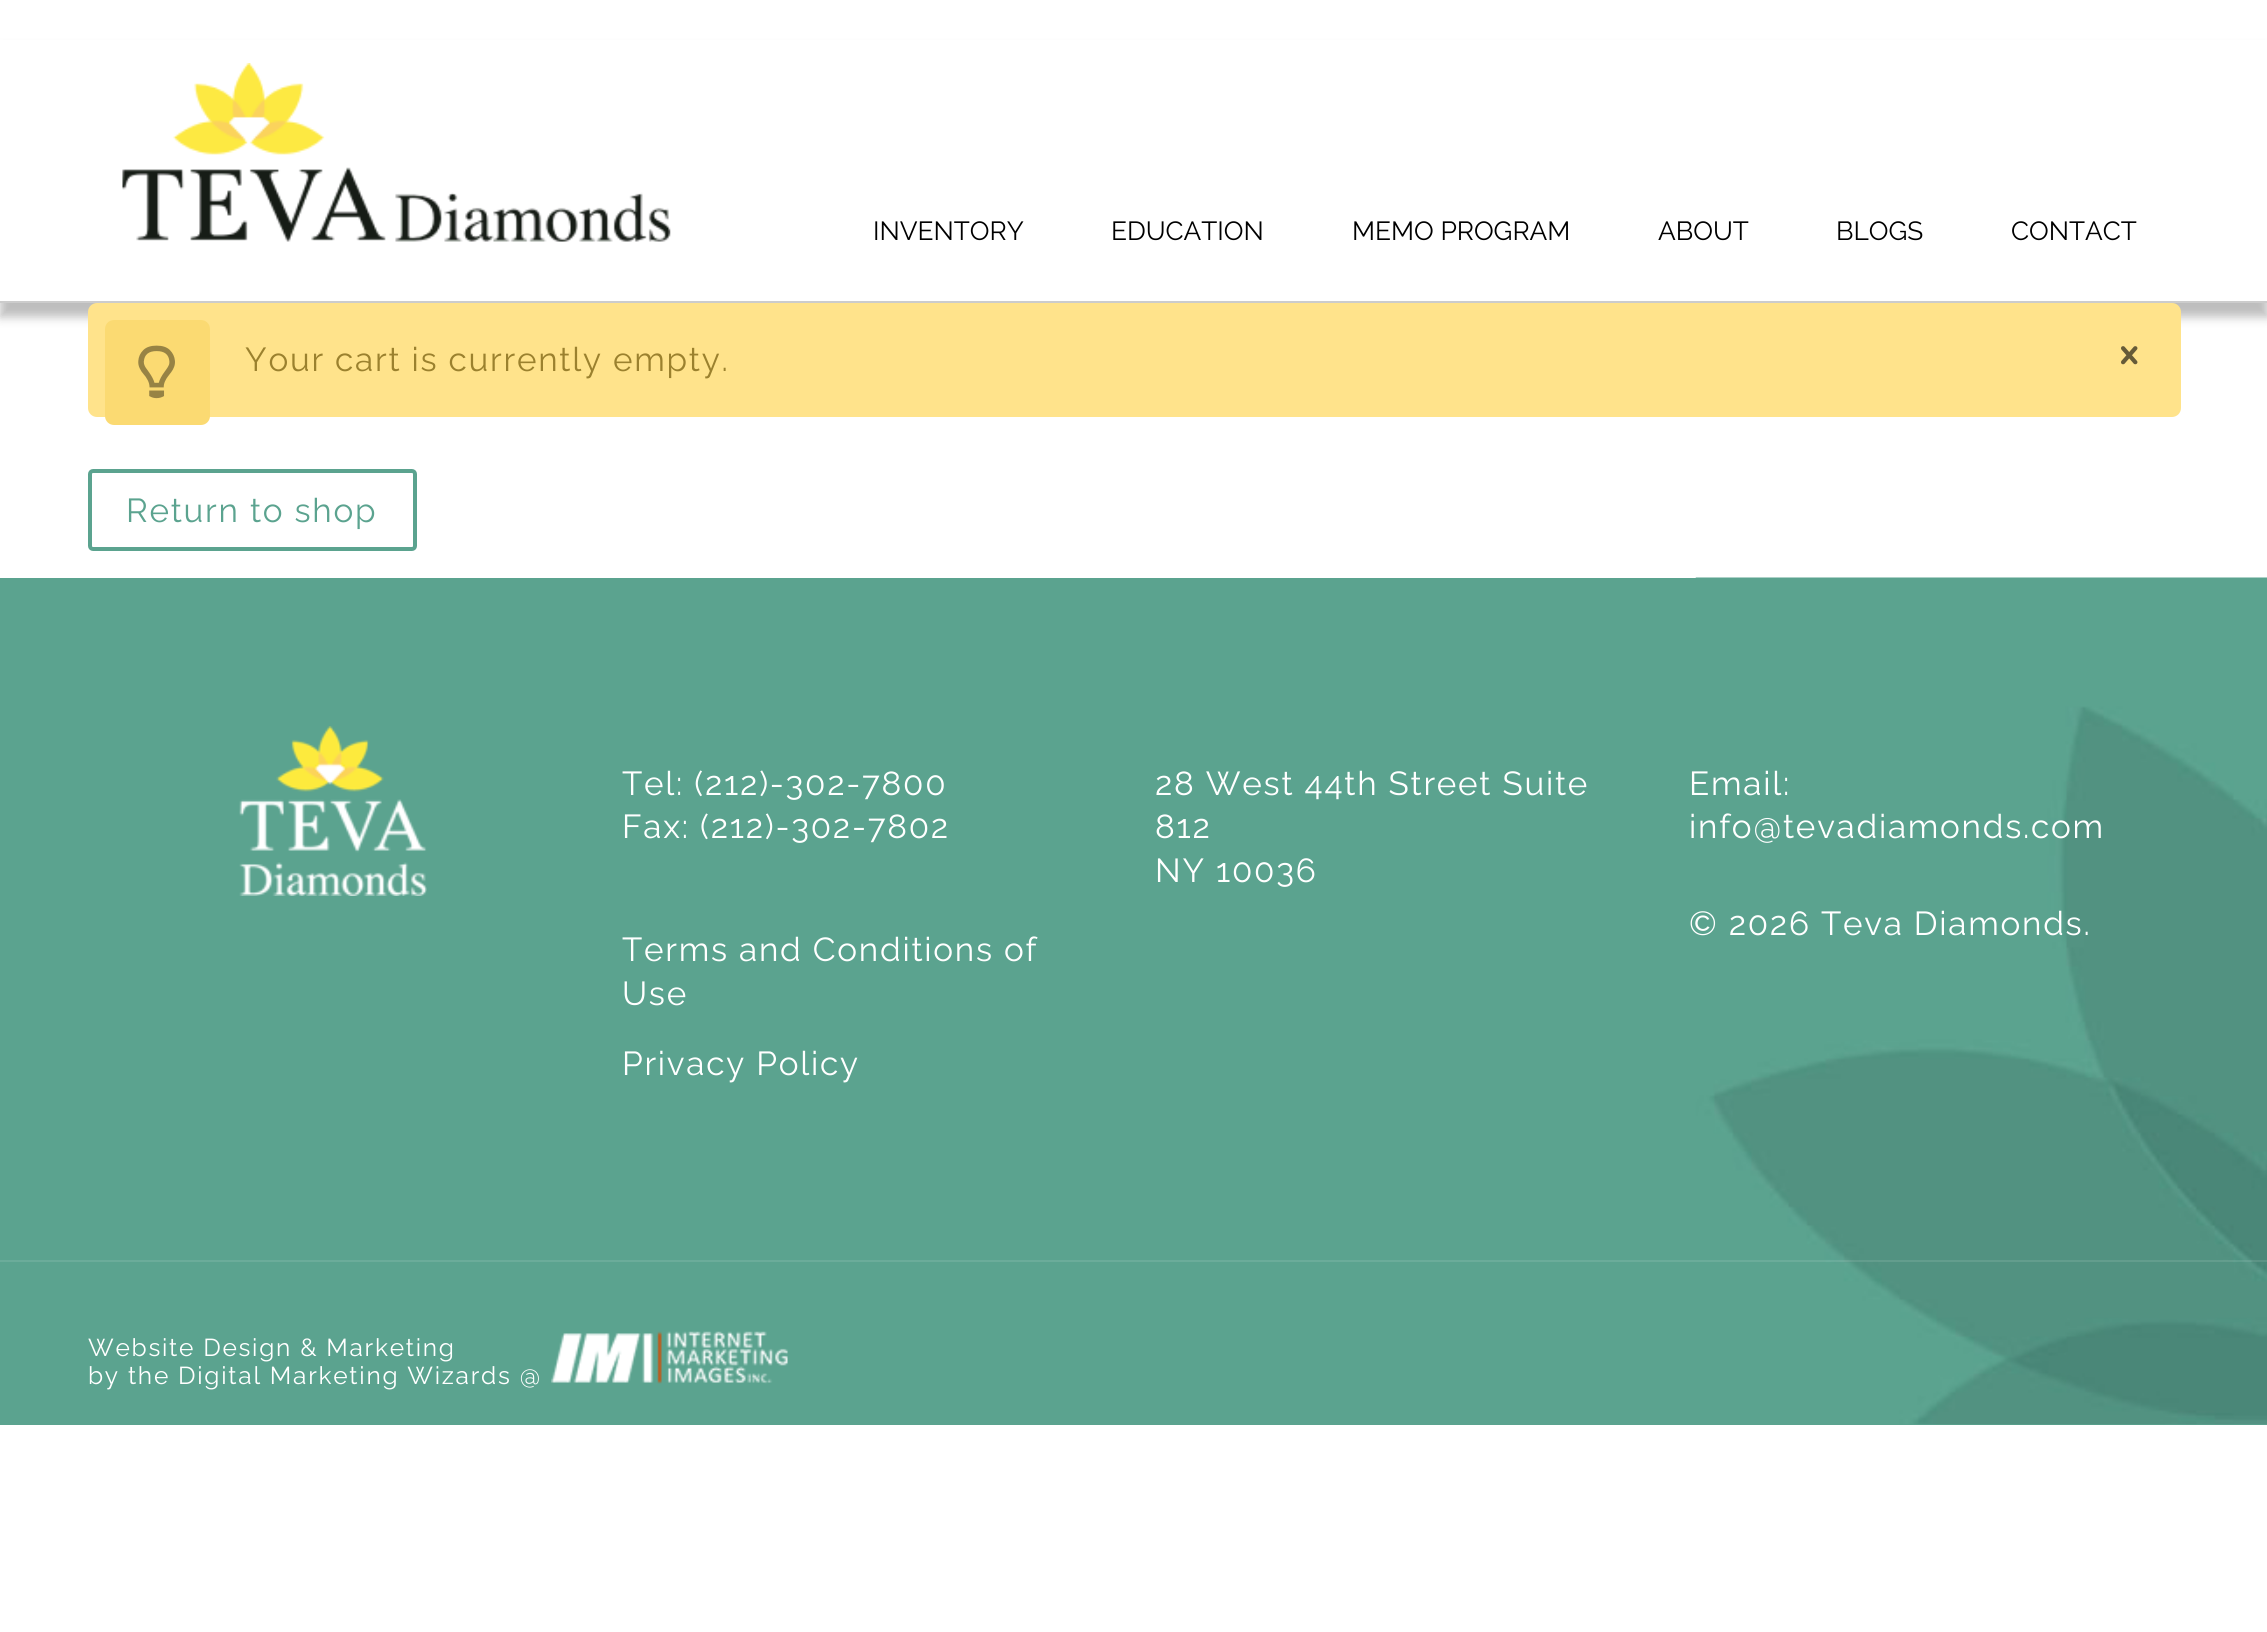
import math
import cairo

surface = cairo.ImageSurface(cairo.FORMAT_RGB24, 2267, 1632)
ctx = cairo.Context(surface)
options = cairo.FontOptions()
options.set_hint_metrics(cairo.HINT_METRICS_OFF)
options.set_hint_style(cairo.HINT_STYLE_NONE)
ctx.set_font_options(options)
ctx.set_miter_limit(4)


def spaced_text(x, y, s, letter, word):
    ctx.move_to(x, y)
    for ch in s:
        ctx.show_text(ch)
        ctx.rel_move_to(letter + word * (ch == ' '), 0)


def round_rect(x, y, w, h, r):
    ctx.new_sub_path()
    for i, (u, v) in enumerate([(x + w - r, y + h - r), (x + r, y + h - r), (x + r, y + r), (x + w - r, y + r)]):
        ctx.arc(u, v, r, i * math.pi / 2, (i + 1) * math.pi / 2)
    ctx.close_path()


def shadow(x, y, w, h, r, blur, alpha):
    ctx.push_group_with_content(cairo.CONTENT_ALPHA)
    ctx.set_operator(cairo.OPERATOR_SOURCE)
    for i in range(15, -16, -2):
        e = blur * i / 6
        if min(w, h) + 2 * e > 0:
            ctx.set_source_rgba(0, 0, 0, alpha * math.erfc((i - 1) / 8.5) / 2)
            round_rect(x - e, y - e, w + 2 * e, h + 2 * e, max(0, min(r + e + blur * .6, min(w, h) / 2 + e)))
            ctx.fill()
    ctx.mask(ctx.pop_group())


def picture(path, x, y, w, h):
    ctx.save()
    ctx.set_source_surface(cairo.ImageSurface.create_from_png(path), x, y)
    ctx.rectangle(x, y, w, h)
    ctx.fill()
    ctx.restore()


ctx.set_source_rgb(1, 1, 1)
ctx.paint()
ctx.set_source_rgb(0, 0, 0)
shadow(0, 49, 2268, 268, 0, 5, 0.26)
ctx.set_source_rgb(1, 1, 1)
ctx.rectangle(0, 40, 2267, 261)
ctx.fill()
ctx.set_source_rgb(0.8, 0.8, 0.8)
ctx.rectangle(0, 301, 2267, 2)
ctx.fill()
picture("img1.png", 122, 63, 549, 179)
ctx.select_font_face("Raleway Thin")
ctx.set_font_size(26.25)
ctx.set_source_rgb(0, 0, 0)
ctx.move_to(873, 240)
ctx.show_text("INVENTORY")
ctx.move_to(1111, 240)
ctx.show_text("EDUCATION")
ctx.move_to(1352, 240)
ctx.show_text("MEMO PROGRAM")
ctx.move_to(1658, 240)
ctx.show_text("ABOUT")
ctx.move_to(1836, 240)
ctx.show_text("BLOGS")
ctx.move_to(2011, 240)
ctx.show_text("CONTACT")
ctx.set_source_rgb(1, 0.89, 0.545)
round_rect(88, 303, 2093, 114, 9)
ctx.fill()
ctx.set_source_rgb(0.984, 0.855, 0.447)
round_rect(105, 320, 105, 105, 9)
ctx.fill()
picture("img2.png", 138, 345, 37, 54)
ctx.set_font_size(33.25)
ctx.set_source_rgb(0.608, 0.506, 0.18)
spaced_text(245, 371, "Your cart is currently empty.", 1.75, 0)
picture("img3.png", 2121, 346, 17, 19)
round_rect(90, 471, 325, 78, 3)
ctx.set_source_rgb(0.357, 0.639, 0.561)
ctx.set_line_width(4)
ctx.stroke()
spaced_text(126, 522, "Return to shop", 1.75, 0)
ctx.rectangle(0, 578, 2267, 847)
ctx.fill()
picture("img4.png", 1695, 577, 572, 848)
picture("img5.png", 239, 726, 188, 170)
ctx.set_source_rgb(1, 1, 1)
spaced_text(622, 795, "Tel: (212)-302-7800", 1.75, 0)
spaced_text(622, 838, "Fax: (212)-302-7802", 1.75, 0)
spaced_text(622, 961, "Terms and Conditions of", 1.75, 0)
spaced_text(622, 1005, "Use", 1.75, 0)
spaced_text(622, 1075, "Privacy Policy", 1.75, 0)
spaced_text(1155, 795, "28 West 44th Street Suite", 1.75, 0)
spaced_text(1155, 838, "812", 1.75, 0)
spaced_text(1155, 882, "NY 10036", 1.75, 0)
spaced_text(1689, 795, "Email:", 1.75, 0)
spaced_text(1689, 838, "info@tevadiamonds.com", 1.75, 0)
spaced_text(1689, 935, "© 2026 Teva Diamonds.", 1.75, 0)
ctx.set_source_rgba(1, 1, 1, 0.1)
ctx.rectangle(0, 1260, 2267, 2)
ctx.fill()
ctx.set_font_size(24.5)
ctx.set_source_rgb(1, 1, 1)
spaced_text(88, 1356, "Website Design & Marketing", 1.75, 0)
spaced_text(88, 1384, "by the Digital Marketing Wizards @", 1.75, 0)
picture("img6.png", 551, 1331, 237, 53)
surface.write_to_png("page.png")
